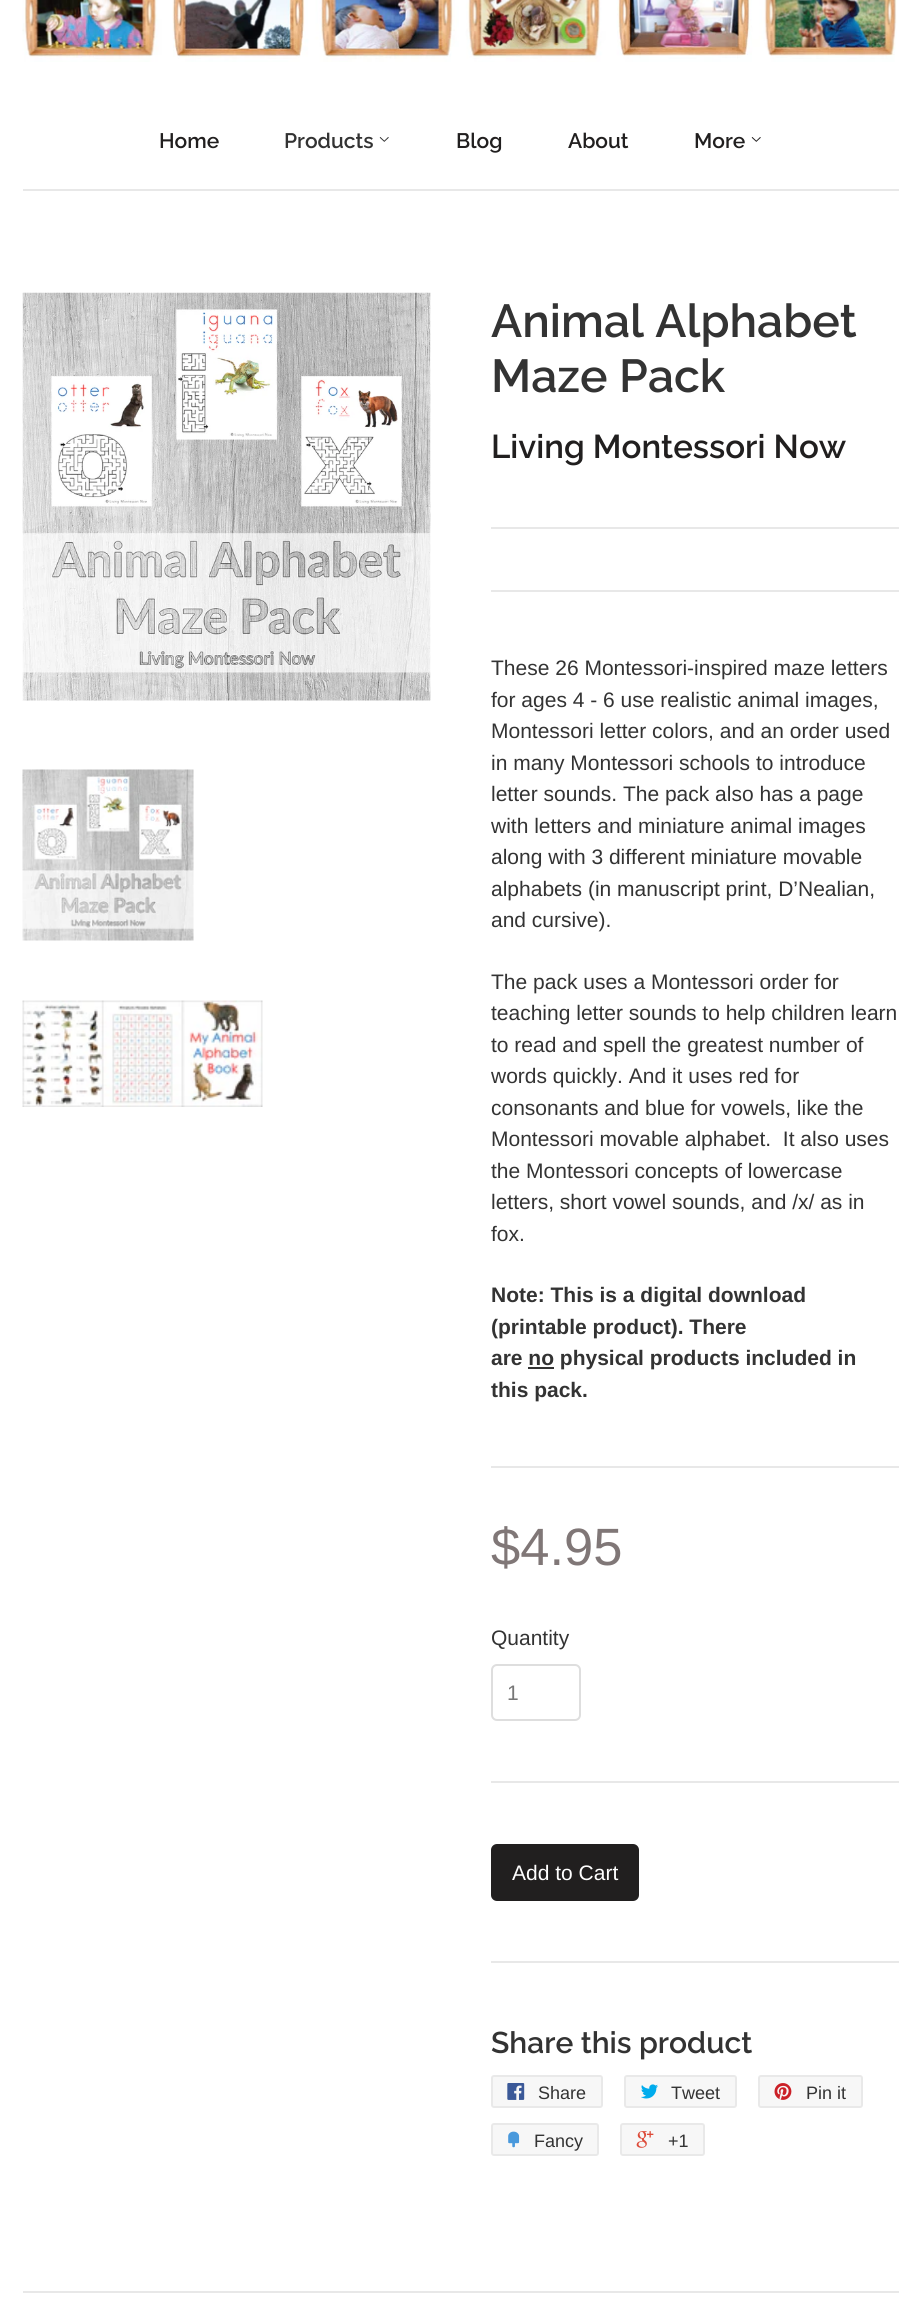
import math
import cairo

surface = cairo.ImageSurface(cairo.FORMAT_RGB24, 920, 2307)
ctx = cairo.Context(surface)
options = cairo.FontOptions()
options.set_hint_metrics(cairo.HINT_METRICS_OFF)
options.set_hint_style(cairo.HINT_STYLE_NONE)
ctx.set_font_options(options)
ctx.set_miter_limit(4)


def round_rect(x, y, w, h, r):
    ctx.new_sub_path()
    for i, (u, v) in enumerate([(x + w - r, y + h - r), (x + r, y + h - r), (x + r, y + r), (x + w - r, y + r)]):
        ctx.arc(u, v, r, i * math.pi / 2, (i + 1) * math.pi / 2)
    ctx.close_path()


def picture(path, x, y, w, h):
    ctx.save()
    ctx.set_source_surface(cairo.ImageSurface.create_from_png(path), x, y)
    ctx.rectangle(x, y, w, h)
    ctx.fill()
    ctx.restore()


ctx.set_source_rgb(1, 1, 1)
ctx.paint()
ctx.set_source_rgb(0.91, 0.91, 0.91)
ctx.rectangle(23, 189, 876, 2)
ctx.fill()
picture("img1.png", 22, 0, 875, 62)
ctx.select_font_face("Raleway Thin")
ctx.set_font_size(21)
ctx.set_source_rgb(0.129, 0.122, 0.122)
ctx.move_to(159, 148)
ctx.show_text("Home")
ctx.set_source_rgb(0.2, 0.2, 0.2)
ctx.move_to(284, 148)
ctx.show_text("Products")
picture("img2.png", 379, 137, 10, 5)
ctx.set_source_rgb(0.129, 0.122, 0.122)
ctx.move_to(456, 148)
ctx.show_text("Blog")
ctx.move_to(568, 148)
ctx.show_text("About")
ctx.move_to(694, 148)
ctx.show_text("More")
picture("img3.png", 751, 137, 10, 5)
picture("img4.png", 22, 292, 409, 409)
picture("img5.png", 22, 769, 172, 172)
picture("img6.png", 22, 1000, 241, 107)
ctx.set_font_size(46.25)
ctx.set_source_rgb(0.2, 0.2, 0.2)
ctx.move_to(491, 337)
ctx.show_text("Animal Alphabet")
ctx.move_to(491, 392)
ctx.show_text("Maze Pack")
ctx.set_font_size(33)
ctx.set_source_rgb(0.129, 0.122, 0.122)
ctx.move_to(491, 458)
ctx.show_text("Living Montessori Now")
ctx.set_source_rgb(0.91, 0.91, 0.91)
ctx.rectangle(491, 527, 408, 2)
ctx.fill()
ctx.rectangle(491, 590, 408, 2)
ctx.fill()
ctx.select_font_face("Liberation Sans")
ctx.set_font_size(21)
ctx.set_source_rgb(0.2, 0.2, 0.2)
ctx.move_to(491, 675)
ctx.show_text("These 26 Montessori-inspired maze letters")
ctx.move_to(491, 707)
ctx.show_text("for ages 4 - 6 use realistic animal images,")
ctx.move_to(491, 738)
ctx.show_text("Montessori letter colors, and an order used")
ctx.move_to(491, 770)
ctx.show_text("in many Montessori schools to introduce")
ctx.move_to(491, 801)
ctx.show_text("letter sounds. The pack also has a page")
ctx.move_to(491, 833)
ctx.show_text("with letters and miniature animal images")
ctx.move_to(491, 864)
ctx.show_text("along with 3 different miniature movable")
ctx.move_to(491, 896)
ctx.show_text("alphabets (in manuscript print, D’Nealian,")
ctx.move_to(491, 927)
ctx.show_text("and cursive).")
ctx.move_to(491, 989)
ctx.show_text("The pack uses a Montessori order for")
ctx.move_to(491, 1020)
ctx.show_text("teaching letter sounds to help children learn")
ctx.move_to(491, 1052)
ctx.show_text("to read and spell the greatest number of")
ctx.move_to(491, 1083)
ctx.show_text("words quickly. And it uses red for")
ctx.move_to(491, 1115)
ctx.show_text("consonants and blue for vowels, like the")
ctx.move_to(491, 1146)
ctx.show_text("Montessori movable alphabet.  It also uses")
ctx.move_to(491, 1178)
ctx.show_text("the Montessori concepts of lowercase")
ctx.move_to(491, 1209)
ctx.show_text("letters, short vowel sounds, and /x/ as in")
ctx.move_to(491, 1241)
ctx.show_text("fox.")
ctx.select_font_face("Liberation Sans", cairo.FONT_SLANT_NORMAL, cairo.FONT_WEIGHT_BOLD)
ctx.move_to(491, 1302)
ctx.show_text("Note: This is a digital download")
ctx.move_to(491, 1334)
ctx.show_text("(printable product). There")
ctx.move_to(491, 1365)
ctx.show_text("are no physical products included in")
ctx.rectangle(528, 1367, 26, 2)
ctx.fill()
ctx.move_to(491, 1397)
ctx.show_text("this pack.")
ctx.set_source_rgb(0.91, 0.91, 0.91)
ctx.rectangle(491, 1466, 408, 2)
ctx.fill()
ctx.select_font_face("Liberation Sans")
ctx.set_font_size(52.5)
ctx.set_source_rgb(0.502, 0.467, 0.467)
ctx.move_to(491, 1565)
ctx.show_text("$4.95")
ctx.set_font_size(21)
ctx.set_source_rgb(0.2, 0.2, 0.2)
ctx.move_to(491, 1645)
ctx.show_text("Quantity")
round_rect(492, 1665, 88, 55, 5)
ctx.set_source_rgb(0.871, 0.871, 0.871)
ctx.stroke()
ctx.set_source_rgb(0.467, 0.467, 0.467)
ctx.move_to(507, 1700)
ctx.show_text("1")
ctx.set_source_rgb(0.91, 0.91, 0.91)
ctx.rectangle(491, 1781, 408, 2)
ctx.fill()
ctx.set_source_rgb(0.129, 0.122, 0.122)
round_rect(491, 1844, 148, 57, 6)
ctx.fill()
ctx.set_source_rgb(1, 1, 1)
ctx.move_to(512, 1880)
ctx.show_text("Add to Cart")
ctx.set_source_rgb(0.91, 0.91, 0.91)
ctx.rectangle(491, 1961, 408, 2)
ctx.fill()
ctx.select_font_face("Raleway Thin")
ctx.set_font_size(30)
ctx.set_source_rgb(0.2, 0.2, 0.2)
ctx.move_to(491, 2053)
ctx.show_text("Share this product")
ctx.set_source_rgb(0.965, 0.965, 0.965)
round_rect(492, 2076, 110, 31, 2)
ctx.fill_preserve()
ctx.set_source_rgb(0.914, 0.914, 0.914)
ctx.stroke()
picture("img7.png", 507, 2083, 18, 17)
ctx.select_font_face("Liberation Sans")
ctx.set_font_size(18)
ctx.set_source_rgb(0.2, 0.2, 0.2)
ctx.move_to(538, 2099)
ctx.show_text("Share")
ctx.set_source_rgb(0.965, 0.965, 0.965)
round_rect(625, 2076, 111, 31, 2)
ctx.fill_preserve()
ctx.set_source_rgb(0.914, 0.914, 0.914)
ctx.stroke()
picture("img8.png", 641, 2084, 17, 15)
ctx.set_source_rgb(0.2, 0.2, 0.2)
ctx.move_to(671, 2099)
ctx.show_text("Tweet")
ctx.set_source_rgb(0.965, 0.965, 0.965)
round_rect(759, 2076, 103, 31, 2)
ctx.fill_preserve()
ctx.set_source_rgb(0.914, 0.914, 0.914)
ctx.stroke()
picture("img9.png", 774, 2083, 18, 17)
ctx.set_source_rgb(0.2, 0.2, 0.2)
ctx.move_to(806, 2099)
ctx.show_text("Pin it")
ctx.set_source_rgb(0.965, 0.965, 0.965)
round_rect(492, 2124, 106, 31, 2)
ctx.fill_preserve()
ctx.set_source_rgb(0.914, 0.914, 0.914)
ctx.stroke()
picture("img10.png", 508, 2131, 12, 17)
ctx.set_source_rgb(0.2, 0.2, 0.2)
ctx.move_to(534, 2147)
ctx.show_text("Fancy")
ctx.set_source_rgb(0.965, 0.965, 0.965)
round_rect(621, 2124, 83, 31, 2)
ctx.fill_preserve()
ctx.set_source_rgb(0.914, 0.914, 0.914)
ctx.stroke()
picture("img11.png", 636, 2131, 18, 17)
ctx.set_source_rgb(0.2, 0.2, 0.2)
ctx.move_to(668, 2147)
ctx.show_text("+1")
ctx.set_source_rgb(0.91, 0.91, 0.91)
ctx.rectangle(23, 2291, 876, 2)
ctx.fill()
surface.write_to_png("page.png")
